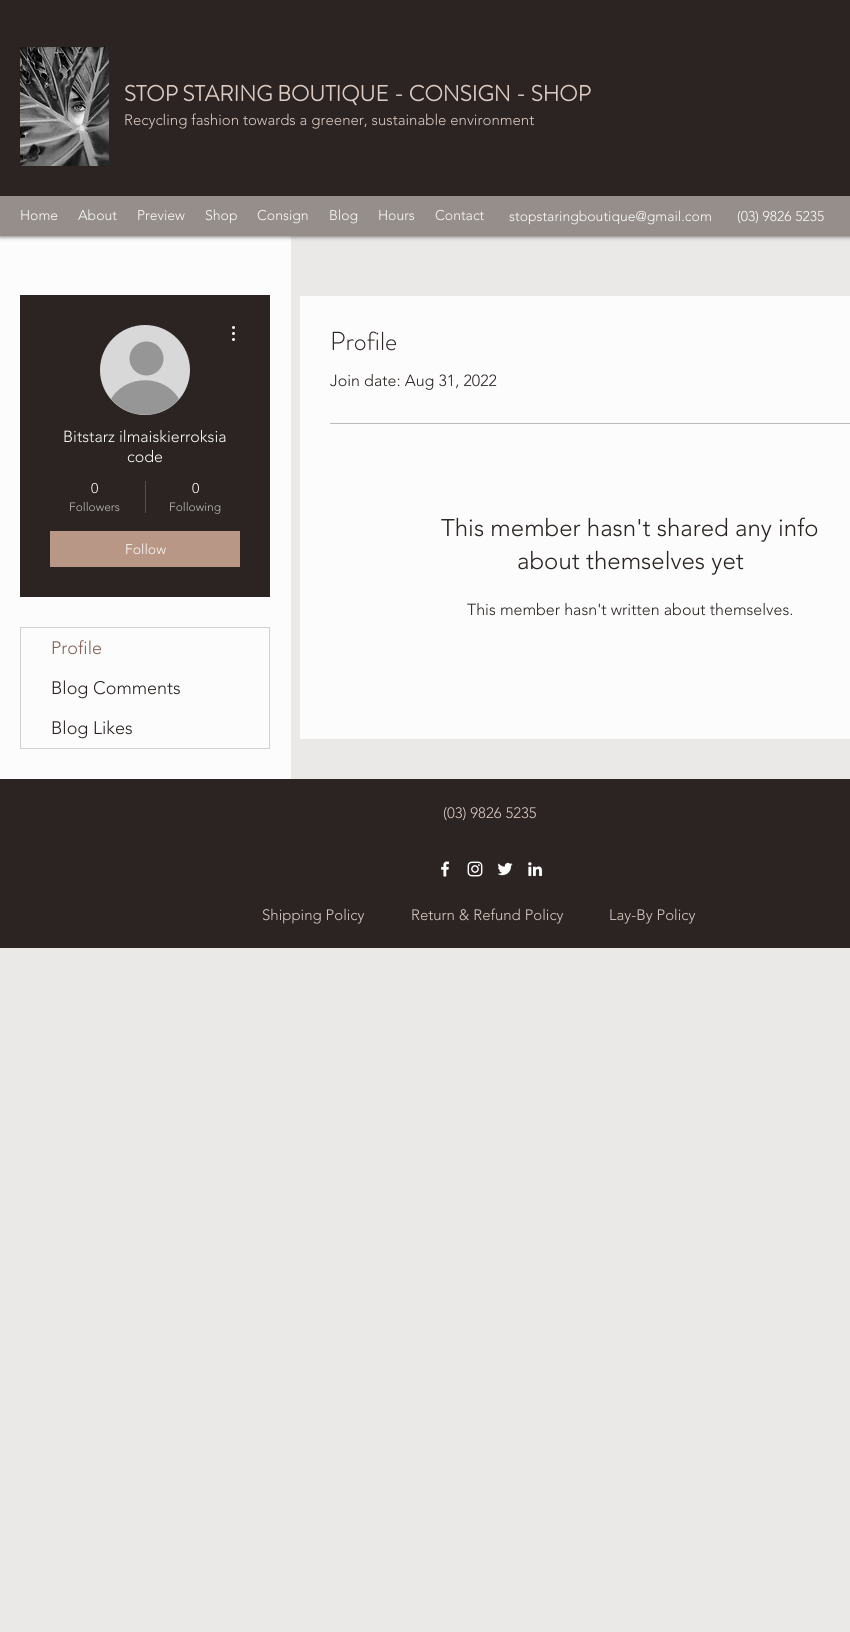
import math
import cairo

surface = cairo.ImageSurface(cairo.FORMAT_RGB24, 850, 1632)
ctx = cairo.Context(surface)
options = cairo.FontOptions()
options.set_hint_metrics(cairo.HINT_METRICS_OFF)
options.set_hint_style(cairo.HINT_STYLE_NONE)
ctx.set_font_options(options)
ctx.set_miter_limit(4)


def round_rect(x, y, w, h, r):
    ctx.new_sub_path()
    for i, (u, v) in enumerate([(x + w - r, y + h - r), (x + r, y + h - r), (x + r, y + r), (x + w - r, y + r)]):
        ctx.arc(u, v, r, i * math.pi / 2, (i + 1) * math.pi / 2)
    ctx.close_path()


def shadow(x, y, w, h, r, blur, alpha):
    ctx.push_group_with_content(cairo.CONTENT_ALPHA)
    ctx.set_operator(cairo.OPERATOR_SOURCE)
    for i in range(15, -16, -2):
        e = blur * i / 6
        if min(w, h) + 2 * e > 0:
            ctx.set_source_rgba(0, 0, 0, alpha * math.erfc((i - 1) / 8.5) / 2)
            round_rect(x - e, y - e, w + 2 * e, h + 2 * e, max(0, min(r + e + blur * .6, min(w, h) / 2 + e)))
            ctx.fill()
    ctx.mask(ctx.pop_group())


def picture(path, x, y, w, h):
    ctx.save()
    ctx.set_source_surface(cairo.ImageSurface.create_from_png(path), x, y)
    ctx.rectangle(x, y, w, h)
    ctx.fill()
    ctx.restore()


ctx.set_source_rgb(0.918, 0.91, 0.91)
ctx.paint()
ctx.set_source_rgb(0.984, 0.988, 0.984)
ctx.rectangle(0, 236, 291, 543)
ctx.fill()
ctx.set_source_rgb(0, 0, 0)
shadow(0, 0, 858, 236, 0, 2.5, 0.7)
ctx.set_source_rgb(0.169, 0.141, 0.137)
ctx.rectangle(0, 0, 850, 196)
ctx.fill()
picture("img1.png", 20, 47, 89, 119)
ctx.select_font_face("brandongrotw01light", cairo.FONT_SLANT_NORMAL, cairo.FONT_WEIGHT_BOLD)
ctx.set_font_size(22)
ctx.set_source_rgb(0.863, 0.796, 0.765)
ctx.move_to(124, 101)
ctx.show_text("STOP STARING BOUTIQUE - CONSIGN - SHOP")
ctx.select_font_face("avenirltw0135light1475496 Light")
ctx.set_font_size(15)
ctx.move_to(124, 125)
ctx.show_text("Recycling fashion towards a greener, sustainable environment")
ctx.set_source_rgb(0.588, 0.557, 0.545)
ctx.rectangle(0, 196, 850, 40)
ctx.fill()
ctx.set_font_size(14)
ctx.set_source_rgb(0.984, 0.988, 0.984)
ctx.move_to(20, 220)
ctx.show_text("Home")
ctx.move_to(78, 220)
ctx.show_text("About")
ctx.move_to(137, 220)
ctx.show_text("Preview")
ctx.move_to(205, 220)
ctx.show_text("Shop")
ctx.move_to(257, 220)
ctx.show_text("Consign")
ctx.move_to(329, 220)
ctx.show_text("Blog")
ctx.move_to(378, 220)
ctx.show_text("Hours")
ctx.move_to(435, 220)
ctx.show_text("Contact")
ctx.move_to(509, 221)
ctx.show_text("stopstaringboutique@gmail.com")
ctx.move_to(737, 221)
ctx.show_text("(03) 9826 5235")
ctx.set_source_rgb(0.169, 0.141, 0.137)
ctx.rectangle(20, 295, 250, 302)
ctx.fill()
ctx.set_source_rgb(0.847, 0.847, 0.847)
ctx.arc(145, 370, 45, 0, 2 * math.pi)
ctx.fill()
ctx.set_source_rgb(0.588, 0.588, 0.588)
ctx.arc(146.5, 358.5, 17, 0, 2 * math.pi)
ctx.fill()
ctx.new_path()
ctx.move_to(179, 399)
ctx.curve_to(161, 420, 129, 420, 111, 399)
ctx.curve_to(126, 374, 164, 374, 179, 399)
ctx.close_path()
ctx.fill()
picture("img2.png", 232, 326, 3, 15)
ctx.set_font_size(16)
ctx.set_source_rgb(0.984, 0.988, 0.984)
ctx.move_to(63, 442)
ctx.show_text("Bitstarz ilmaiskierroksia")
ctx.move_to(127, 462)
ctx.show_text("code")
ctx.set_font_size(14)
ctx.move_to(91, 493)
ctx.show_text("0")
ctx.set_font_size(12)
ctx.set_source_rgb(0.741, 0.733, 0.729)
ctx.move_to(69, 511)
ctx.show_text("Followers")
ctx.set_source_rgb(0.333, 0.31, 0.306)
ctx.rectangle(145, 481, 1, 32)
ctx.fill()
ctx.set_font_size(14)
ctx.set_source_rgb(0.984, 0.988, 0.984)
ctx.move_to(192, 493)
ctx.show_text("0")
ctx.set_font_size(12)
ctx.set_source_rgb(0.741, 0.733, 0.729)
ctx.move_to(169, 511)
ctx.show_text("Following")
ctx.set_source_rgb(0.722, 0.592, 0.525)
ctx.rectangle(50, 531, 190, 36)
ctx.fill()
ctx.set_font_size(14)
ctx.set_source_rgb(0.984, 0.988, 0.984)
ctx.move_to(125, 554)
ctx.show_text("Follow")
ctx.rectangle(20.5, 627.5, 249, 121)
ctx.set_source_rgb(0.82, 0.82, 0.816)
ctx.set_line_width(1)
ctx.stroke()
ctx.set_font_size(18)
ctx.set_source_rgb(0.506, 0.384, 0.337)
ctx.move_to(51, 654)
ctx.show_text("Profile")
ctx.set_source_rgb(0.169, 0.141, 0.137)
ctx.move_to(51, 694)
ctx.show_text("Blog Comments")
ctx.move_to(51, 734)
ctx.show_text("Blog Likes")
ctx.set_source_rgb(0.984, 0.988, 0.984)
ctx.rectangle(300, 296, 550, 443)
ctx.fill()
ctx.select_font_face("brandongrotw01light Light")
ctx.set_font_size(26)
ctx.set_source_rgb(0.169, 0.141, 0.137)
ctx.move_to(330, 350)
ctx.show_text("Profile")
ctx.select_font_face("avenirltw0135light1475496 Light")
ctx.set_font_size(16)
ctx.move_to(330, 386)
ctx.show_text("Join date: Aug 31, 2022")
ctx.set_source_rgb(0.741, 0.733, 0.729)
ctx.rectangle(330, 423, 520, 1)
ctx.fill()
ctx.set_font_size(24)
ctx.set_source_rgb(0.169, 0.141, 0.137)
ctx.move_to(441, 536)
ctx.show_text("This member hasn't shared any info")
ctx.move_to(517, 569)
ctx.show_text("about themselves yet")
ctx.set_font_size(16)
ctx.move_to(467, 615)
ctx.show_text("This member hasn't written about themselves.")
ctx.rectangle(0, 779, 850, 169)
ctx.fill()
ctx.set_font_size(15)
ctx.set_source_rgb(0.863, 0.796, 0.765)
ctx.move_to(443, 818)
ctx.show_text("(03) 9826 5235")
picture("img3.png", 441, 861, 9, 16)
picture("img4.png", 467, 861, 16, 16)
picture("img5.png", 497, 862, 16, 14)
picture("img6.png", 528, 862, 15, 15)
ctx.move_to(262, 920)
ctx.show_text("Shipping Policy")
ctx.move_to(411, 920)
ctx.show_text("Return & Refund Policy")
ctx.move_to(609, 920)
ctx.show_text("Lay-By Policy")
surface.write_to_png("page.png")
